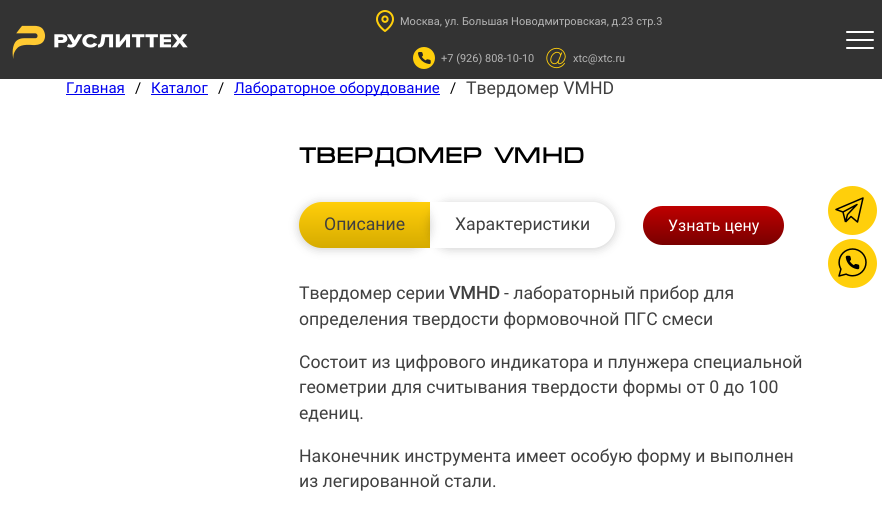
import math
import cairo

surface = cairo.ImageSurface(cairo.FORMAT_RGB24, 882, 526)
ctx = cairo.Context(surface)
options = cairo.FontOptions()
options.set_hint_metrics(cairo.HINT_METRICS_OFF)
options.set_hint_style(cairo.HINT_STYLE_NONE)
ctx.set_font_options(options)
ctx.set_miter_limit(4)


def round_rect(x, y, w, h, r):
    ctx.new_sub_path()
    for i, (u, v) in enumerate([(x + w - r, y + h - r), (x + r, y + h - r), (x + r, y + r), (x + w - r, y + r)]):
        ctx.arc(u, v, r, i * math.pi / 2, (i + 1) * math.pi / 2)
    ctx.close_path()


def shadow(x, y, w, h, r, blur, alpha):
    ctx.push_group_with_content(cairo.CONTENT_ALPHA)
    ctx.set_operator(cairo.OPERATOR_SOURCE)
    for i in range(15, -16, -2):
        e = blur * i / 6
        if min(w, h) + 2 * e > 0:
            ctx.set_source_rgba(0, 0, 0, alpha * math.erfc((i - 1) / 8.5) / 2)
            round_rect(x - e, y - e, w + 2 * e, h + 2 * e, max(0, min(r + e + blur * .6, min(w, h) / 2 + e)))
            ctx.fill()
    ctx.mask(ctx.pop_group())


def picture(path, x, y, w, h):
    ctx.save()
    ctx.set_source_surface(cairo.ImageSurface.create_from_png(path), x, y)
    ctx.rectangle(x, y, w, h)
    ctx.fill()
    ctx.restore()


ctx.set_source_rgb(1, 1, 1)
ctx.paint()
ctx.set_source_rgb(0.2, 0.2, 0.2)
ctx.rectangle(0, 0, 882, 79)
ctx.fill()
picture("img1.png", 12, 25, 176, 34)
picture("img2.png", 376, 10, 18, 22)
ctx.select_font_face("Roboto")
ctx.set_font_size(11)
ctx.set_source_rgb(0.714, 0.714, 0.714)
ctx.move_to(400, 25)
ctx.show_text("Москва, ул. Большая Новодмитровская, д.23 стр.3")
picture("img3.png", 413, 47, 22, 22)
ctx.move_to(441, 62)
ctx.show_text("+7 (926) 808-10-10")
picture("img4.png", 546, 47, 20, 22)
ctx.move_to(573, 62)
ctx.show_text("xtc@xtc.ru")
picture("img5.png", 846, 31, 28, 18)
ctx.set_font_size(15)
ctx.set_source_rgb(0, 0, 0.933)
ctx.move_to(66, 93)
ctx.show_text("Главная")
ctx.rectangle(66, 94, 59, 1)
ctx.fill()
ctx.set_source_rgb(0, 0, 0)
ctx.move_to(135, 93)
ctx.show_text("/")
ctx.set_source_rgb(0, 0, 0.933)
ctx.move_to(151, 93)
ctx.show_text("Каталог")
ctx.rectangle(151, 94, 57, 1)
ctx.fill()
ctx.set_source_rgb(0, 0, 0)
ctx.move_to(218, 93)
ctx.show_text("/")
ctx.set_source_rgb(0, 0, 0.933)
ctx.rectangle(234, 94, 206, 1)
ctx.fill()
ctx.move_to(234, 93)
ctx.show_text("Лабораторное оборудование")
ctx.set_source_rgb(0, 0, 0)
ctx.move_to(450, 93)
ctx.show_text("/")
ctx.set_font_size(17.65)
ctx.set_source_rgb(0.251, 0.251, 0.251)
ctx.move_to(466, 94)
ctx.show_text("Твердомер VMHD")
ctx.select_font_face("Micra", cairo.FONT_SLANT_NORMAL, cairo.FONT_WEIGHT_BOLD)
ctx.set_font_size(22)
ctx.set_source_rgb(0, 0, 0)
ctx.move_to(299, 163)
ctx.show_text("ТВЕРДОМЕР VMHD")
ctx.set_source_rgb(0, 0, 0)
shadow(299, 203, 131, 46, 23, 5, 0.2)
gradient = cairo.LinearGradient(365, 248, 365, 202)
gradient.add_color_stop_rgba(0, 0.839, 0.671, 0, 1)
gradient.add_color_stop_rgba(1, 1, 0.808, 0.039, 1)
ctx.set_source(gradient)
ctx.new_path()
ctx.move_to(322, 202)
ctx.line_to(430, 202)
ctx.line_to(430, 248)
ctx.line_to(322, 248)
ctx.curve_to(309.5, 248, 299, 237.5, 299, 225)
ctx.curve_to(299, 212.5, 309.5, 202, 322, 202)
ctx.close_path()
ctx.fill()
ctx.select_font_face("Roboto")
ctx.set_font_size(17.65)
ctx.set_source_rgb(0.251, 0.251, 0.251)
ctx.move_to(324, 230)
ctx.show_text("Описание")
ctx.save()
ctx.set_fill_rule(cairo.FILL_RULE_EVEN_ODD)
ctx.new_path()
ctx.move_to(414, 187)
ctx.line_to(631, 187)
ctx.line_to(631, 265)
ctx.line_to(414, 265)
ctx.close_path()
ctx.move_to(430, 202)
ctx.line_to(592, 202)
ctx.curve_to(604.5, 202, 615, 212.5, 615, 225)
ctx.curve_to(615, 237.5, 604.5, 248, 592, 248)
ctx.line_to(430, 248)
ctx.close_path()
ctx.clip()
ctx.set_source_rgb(0, 0, 0)
shadow(430, 203, 185, 46, 23, 5, 0.2)
ctx.restore()
ctx.move_to(455, 230)
ctx.show_text("Характеристики")
gradient = cairo.LinearGradient(714, 245, 714, 206)
gradient.add_color_stop_rgba(0, 0.475, 0, 0, 1)
gradient.add_color_stop_rgba(1, 0.749, 0, 0, 1)
ctx.set_source(gradient)
round_rect(643, 206, 141, 39, 19.5)
ctx.fill()
ctx.set_font_size(16)
ctx.set_source_rgb(1, 1, 1)
ctx.move_to(668, 231)
ctx.show_text("Узнать цену")
ctx.set_font_size(17.65)
ctx.set_source_rgb(0.251, 0.251, 0.251)
ctx.move_to(299, 299)
ctx.show_text("Твердомер серии")
ctx.select_font_face("Roboto", cairo.FONT_SLANT_NORMAL, cairo.FONT_WEIGHT_BOLD)
ctx.move_to(449, 299)
ctx.show_text("VMHD")
ctx.select_font_face("Roboto")
ctx.move_to(504, 299)
ctx.show_text("- лабораторный прибор для")
ctx.move_to(299, 325)
ctx.show_text("определения твердости формовочной ПГС смеси")
ctx.move_to(299, 368)
ctx.show_text("Состоит из цифрового индикатора и плунжера специальной")
ctx.move_to(299, 393)
ctx.show_text("геометрии для считывания твердости формы от 0 до 100")
ctx.move_to(299, 419)
ctx.show_text("едениц.")
ctx.move_to(299, 462)
ctx.show_text("Наконечник инструмента имеет особую форму и выполнен")
ctx.move_to(299, 487)
ctx.show_text("из легированной стали.")
ctx.set_source_rgb(1, 0.812, 0.043)
ctx.new_path()
ctx.arc(852.5, 210.5, 24.5, 0, 2 * math.pi)
ctx.fill()
ctx.new_path()
ctx.move_to(845.5, 222)
ctx.line_to(851, 216.5)
ctx.line_to(857.5, 222)
ctx.line_to(863, 198)
ctx.line_to(836, 209.5)
ctx.line_to(843, 212)
ctx.move_to(845.5, 222)
ctx.line_to(843, 212)
ctx.move_to(845.5, 222)
ctx.line_to(847.5, 214.5)
ctx.line_to(857, 204.5)
ctx.line_to(843, 212)
ctx.set_source_rgb(0, 0, 0)
ctx.set_line_width(1.5)
ctx.set_line_join(cairo.LINE_JOIN_ROUND)
ctx.stroke()
picture("img6.png", 828, 239, 49, 49)
surface.write_to_png("page.png")
